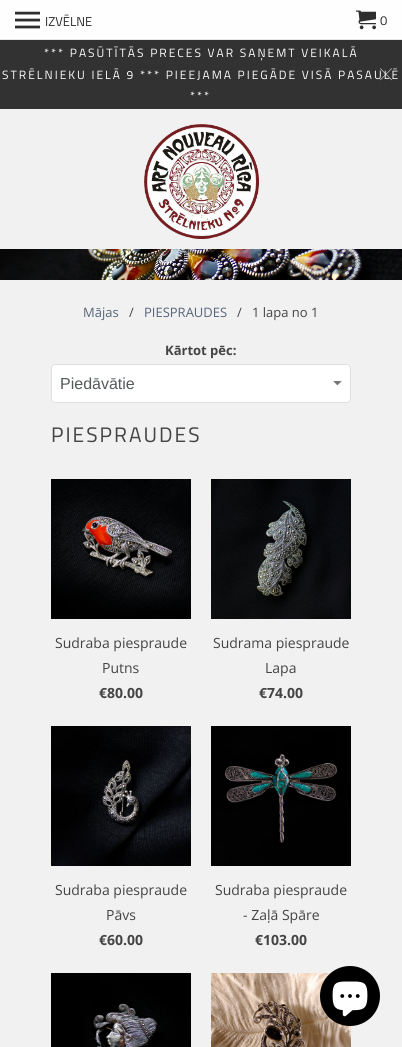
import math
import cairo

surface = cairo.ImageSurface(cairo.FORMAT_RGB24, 402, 1047)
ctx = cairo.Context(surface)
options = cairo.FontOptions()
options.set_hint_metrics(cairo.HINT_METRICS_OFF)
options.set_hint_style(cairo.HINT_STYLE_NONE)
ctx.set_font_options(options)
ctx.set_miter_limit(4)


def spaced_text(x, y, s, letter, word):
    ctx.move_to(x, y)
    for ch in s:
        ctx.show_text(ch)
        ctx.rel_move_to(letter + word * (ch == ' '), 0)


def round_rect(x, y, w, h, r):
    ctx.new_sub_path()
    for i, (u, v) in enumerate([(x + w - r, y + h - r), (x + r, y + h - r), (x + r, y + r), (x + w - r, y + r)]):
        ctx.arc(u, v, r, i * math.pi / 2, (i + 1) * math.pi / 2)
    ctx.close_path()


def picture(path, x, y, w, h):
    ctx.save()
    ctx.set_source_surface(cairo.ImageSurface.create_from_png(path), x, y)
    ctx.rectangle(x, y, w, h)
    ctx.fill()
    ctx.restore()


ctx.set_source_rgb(0.945, 0.945, 0.945)
ctx.paint()
ctx.set_source_rgb(0.996, 0.996, 0.996)
ctx.rectangle(0, 0, 402, 39)
ctx.fill()
ctx.set_source_rgb(0.902, 0.902, 0.902)
ctx.rectangle(0, 39, 402, 1)
ctx.fill()
picture("img1.png", 15, 11, 25, 18)
ctx.select_font_face("Titillium Web")
ctx.set_font_size(13)
ctx.set_source_rgb(0.176, 0.176, 0.176)
ctx.move_to(45, 26)
ctx.show_text("IZVĒLNE")
picture("img2.png", 356, 10, 20, 20)
ctx.move_to(380, 25)
ctx.show_text("0")
ctx.set_source_rgb(0.196, 0.196, 0.196)
ctx.rectangle(0, 40, 402, 69)
ctx.fill()
ctx.set_font_size(12)
ctx.set_source_rgb(0.996, 0.996, 0.996)
spaced_text(44, 57, "*** PASŪTĪTĀS PRECES VAR SAŅEMT VEIKALĀ", 2, 0)
spaced_text(2, 79, "STRĒLNIEKU IELĀ 9 *** PIEEJAMA PIEGĀDE VISĀ PASAULĒ", 2, 0)
spaced_text(190, 100, "***", 2, 0)
picture("img3.png", 380, 68, 12, 13)
picture("img4.png", 144, 124, 115, 115)
picture("img5.png", 0, 249, 402, 31)
ctx.select_font_face("Open Sans")
ctx.set_font_size(13)
ctx.set_source_rgb(0.337, 0.4, 0.475)
ctx.move_to(83, 317)
ctx.show_text("Mājas")
ctx.set_source_rgb(0.267, 0.267, 0.267)
ctx.move_to(129, 317)
ctx.show_text("/")
ctx.set_source_rgb(0.337, 0.4, 0.475)
ctx.move_to(144, 317)
ctx.show_text("PIESPRAUDES")
ctx.set_source_rgb(0.267, 0.267, 0.267)
ctx.move_to(237, 317)
ctx.show_text("/   1 lapa no 1")
ctx.select_font_face("Open Sans", cairo.FONT_SLANT_NORMAL, cairo.FONT_WEIGHT_BOLD)
ctx.move_to(165, 355)
ctx.show_text("Kārtot pēc:")
ctx.set_source_rgb(1, 1, 1)
round_rect(51, 364, 300, 39, 4)
ctx.fill()
picture("img6.png", 333, 381, 9, 5)
round_rect(51.5, 364.5, 299, 38, 3.5)
ctx.set_source_rgb(0.863, 0.878, 0.878)
ctx.set_line_width(1)
ctx.stroke()
ctx.select_font_face("Liberation Sans")
ctx.set_font_size(16)
ctx.set_source_rgb(0.337, 0.353, 0.361)
ctx.move_to(60, 389)
ctx.show_text("Piedāvātie")
ctx.select_font_face("Titillium Web")
ctx.set_font_size(21)
ctx.set_source_rgb(0.267, 0.267, 0.267)
spaced_text(51, 442, "PIESPRAUDES", 2, 0)
picture("img7.png", 51, 479, 140, 140)
ctx.select_font_face("Open Sans")
ctx.set_font_size(14)
ctx.move_to(55, 648)
ctx.show_text("Sudraba piespraude")
ctx.move_to(102, 673)
ctx.show_text("Putns")
ctx.select_font_face("Open Sans", cairo.FONT_SLANT_NORMAL, cairo.FONT_WEIGHT_BOLD)
ctx.move_to(99, 698)
ctx.show_text("€80.00")
picture("img8.png", 211, 479, 140, 140)
ctx.select_font_face("Open Sans")
ctx.move_to(213, 648)
ctx.show_text("Sudrama piespraude")
ctx.move_to(265, 673)
ctx.show_text("Lapa")
ctx.select_font_face("Open Sans", cairo.FONT_SLANT_NORMAL, cairo.FONT_WEIGHT_BOLD)
ctx.move_to(259, 698)
ctx.show_text("€74.00")
picture("img9.png", 51, 726, 140, 140)
ctx.select_font_face("Open Sans")
ctx.move_to(55, 895)
ctx.show_text("Sudraba piespraude")
ctx.move_to(106, 920)
ctx.show_text("Pāvs")
ctx.select_font_face("Open Sans", cairo.FONT_SLANT_NORMAL, cairo.FONT_WEIGHT_BOLD)
ctx.move_to(99, 945)
ctx.show_text("€60.00")
picture("img10.png", 211, 726, 140, 140)
ctx.select_font_face("Open Sans")
ctx.move_to(215, 895)
ctx.show_text("Sudraba piespraude")
ctx.move_to(243, 920)
ctx.show_text("- Zaļā Spāre")
ctx.select_font_face("Open Sans", cairo.FONT_SLANT_NORMAL, cairo.FONT_WEIGHT_BOLD)
ctx.move_to(255, 945)
ctx.show_text("€103.00")
picture("img11.png", 51, 973, 140, 74)
picture("img12.png", 211, 973, 140, 74)
ctx.set_source_rgb(0, 0, 0)
ctx.arc(350, 996, 30, 0, 2 * math.pi)
ctx.fill()
picture("img13.png", 332, 981, 36, 36)
surface.write_to_png("page.png")
